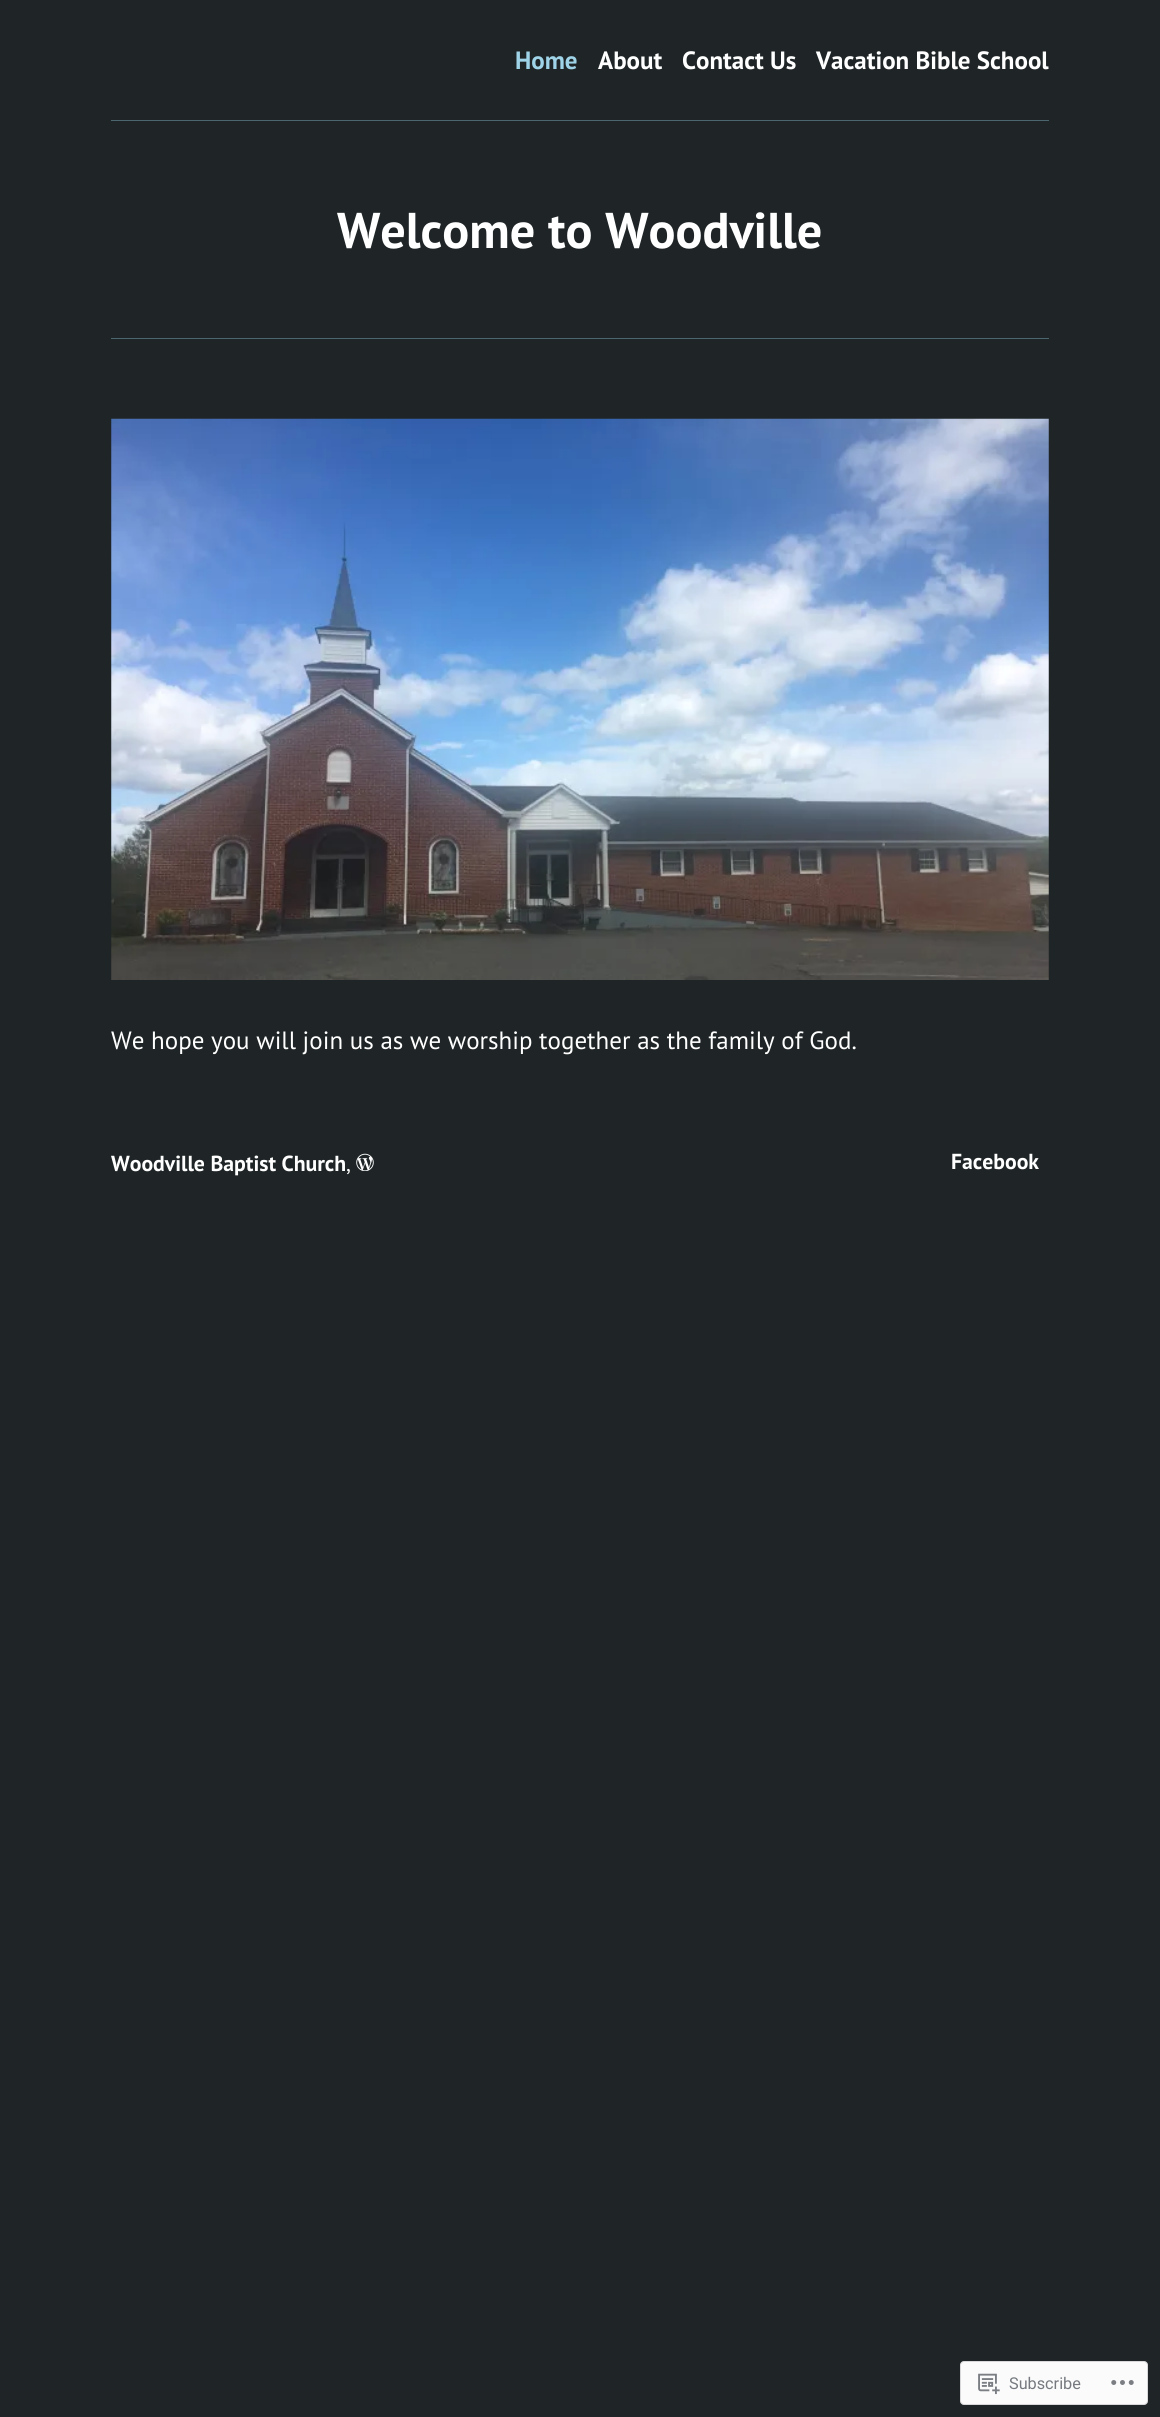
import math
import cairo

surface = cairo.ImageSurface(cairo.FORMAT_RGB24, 1160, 2417)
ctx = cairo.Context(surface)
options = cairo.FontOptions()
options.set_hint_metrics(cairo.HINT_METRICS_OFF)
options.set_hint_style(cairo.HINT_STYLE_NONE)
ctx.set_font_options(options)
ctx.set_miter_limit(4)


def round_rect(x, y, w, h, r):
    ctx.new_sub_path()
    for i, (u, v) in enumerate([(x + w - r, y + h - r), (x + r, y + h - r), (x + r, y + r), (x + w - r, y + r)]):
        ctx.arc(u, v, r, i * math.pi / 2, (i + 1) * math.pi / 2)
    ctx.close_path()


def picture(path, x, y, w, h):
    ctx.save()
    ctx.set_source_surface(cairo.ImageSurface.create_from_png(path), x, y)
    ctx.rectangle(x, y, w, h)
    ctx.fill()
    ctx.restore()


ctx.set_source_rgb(0.122, 0.145, 0.153)
ctx.paint()
ctx.select_font_face("PT Sans", cairo.FONT_SLANT_NORMAL, cairo.FONT_WEIGHT_BOLD)
ctx.set_font_size(25)
ctx.set_source_rgb(0.624, 0.827, 0.91)
ctx.move_to(515, 69)
ctx.show_text("Home")
ctx.set_source_rgb(1, 1, 1)
ctx.move_to(598, 69)
ctx.show_text("About")
ctx.move_to(682, 69)
ctx.show_text("Contact Us")
ctx.move_to(816, 69)
ctx.show_text("Vacation Bible School")
ctx.set_source_rgb(0.294, 0.4, 0.431)
ctx.rectangle(111, 120, 938, 1)
ctx.fill()
ctx.set_font_size(50.25)
ctx.set_source_rgb(1, 1, 1)
ctx.move_to(337, 248)
ctx.show_text("Welcome to Woodville")
ctx.set_source_rgb(0.294, 0.4, 0.431)
ctx.rectangle(111, 338, 938, 1)
ctx.fill()
picture("img1.png", 111, 418, 938, 562)
ctx.select_font_face("PT Sans")
ctx.set_font_size(25)
ctx.set_source_rgb(1, 1, 1)
ctx.move_to(111, 1049)
ctx.show_text("We hope you will join us as we worship together as the family of God.")
ctx.select_font_face("PT Sans", cairo.FONT_SLANT_NORMAL, cairo.FONT_WEIGHT_BOLD)
ctx.set_font_size(21.75)
ctx.move_to(111, 1171)
ctx.show_text("Woodville Baptist Church")
ctx.select_font_face("PT Sans")
ctx.move_to(346, 1171)
ctx.show_text(",")
picture("img2.png", 356, 1153, 18, 18)
ctx.select_font_face("PT Sans", cairo.FONT_SLANT_NORMAL, cairo.FONT_WEIGHT_BOLD)
ctx.move_to(951, 1169)
ctx.show_text("Facebook")
ctx.set_source_rgb(0.984, 0.984, 0.984)
round_rect(960.5, 2361.5, 187, 43, 3.5)
ctx.fill_preserve()
ctx.set_source_rgb(0.847, 0.847, 0.855)
ctx.set_line_width(1)
ctx.stroke()
picture("img3.png", 978, 2373, 22, 22)
ctx.select_font_face("Roboto")
ctx.set_font_size(16.25)
ctx.set_source_rgb(0.463, 0.478, 0.502)
ctx.move_to(1009, 2389)
ctx.show_text("Subscribe")
picture("img4.png", 1111, 2380, 23, 5)
surface.write_to_png("page.png")
